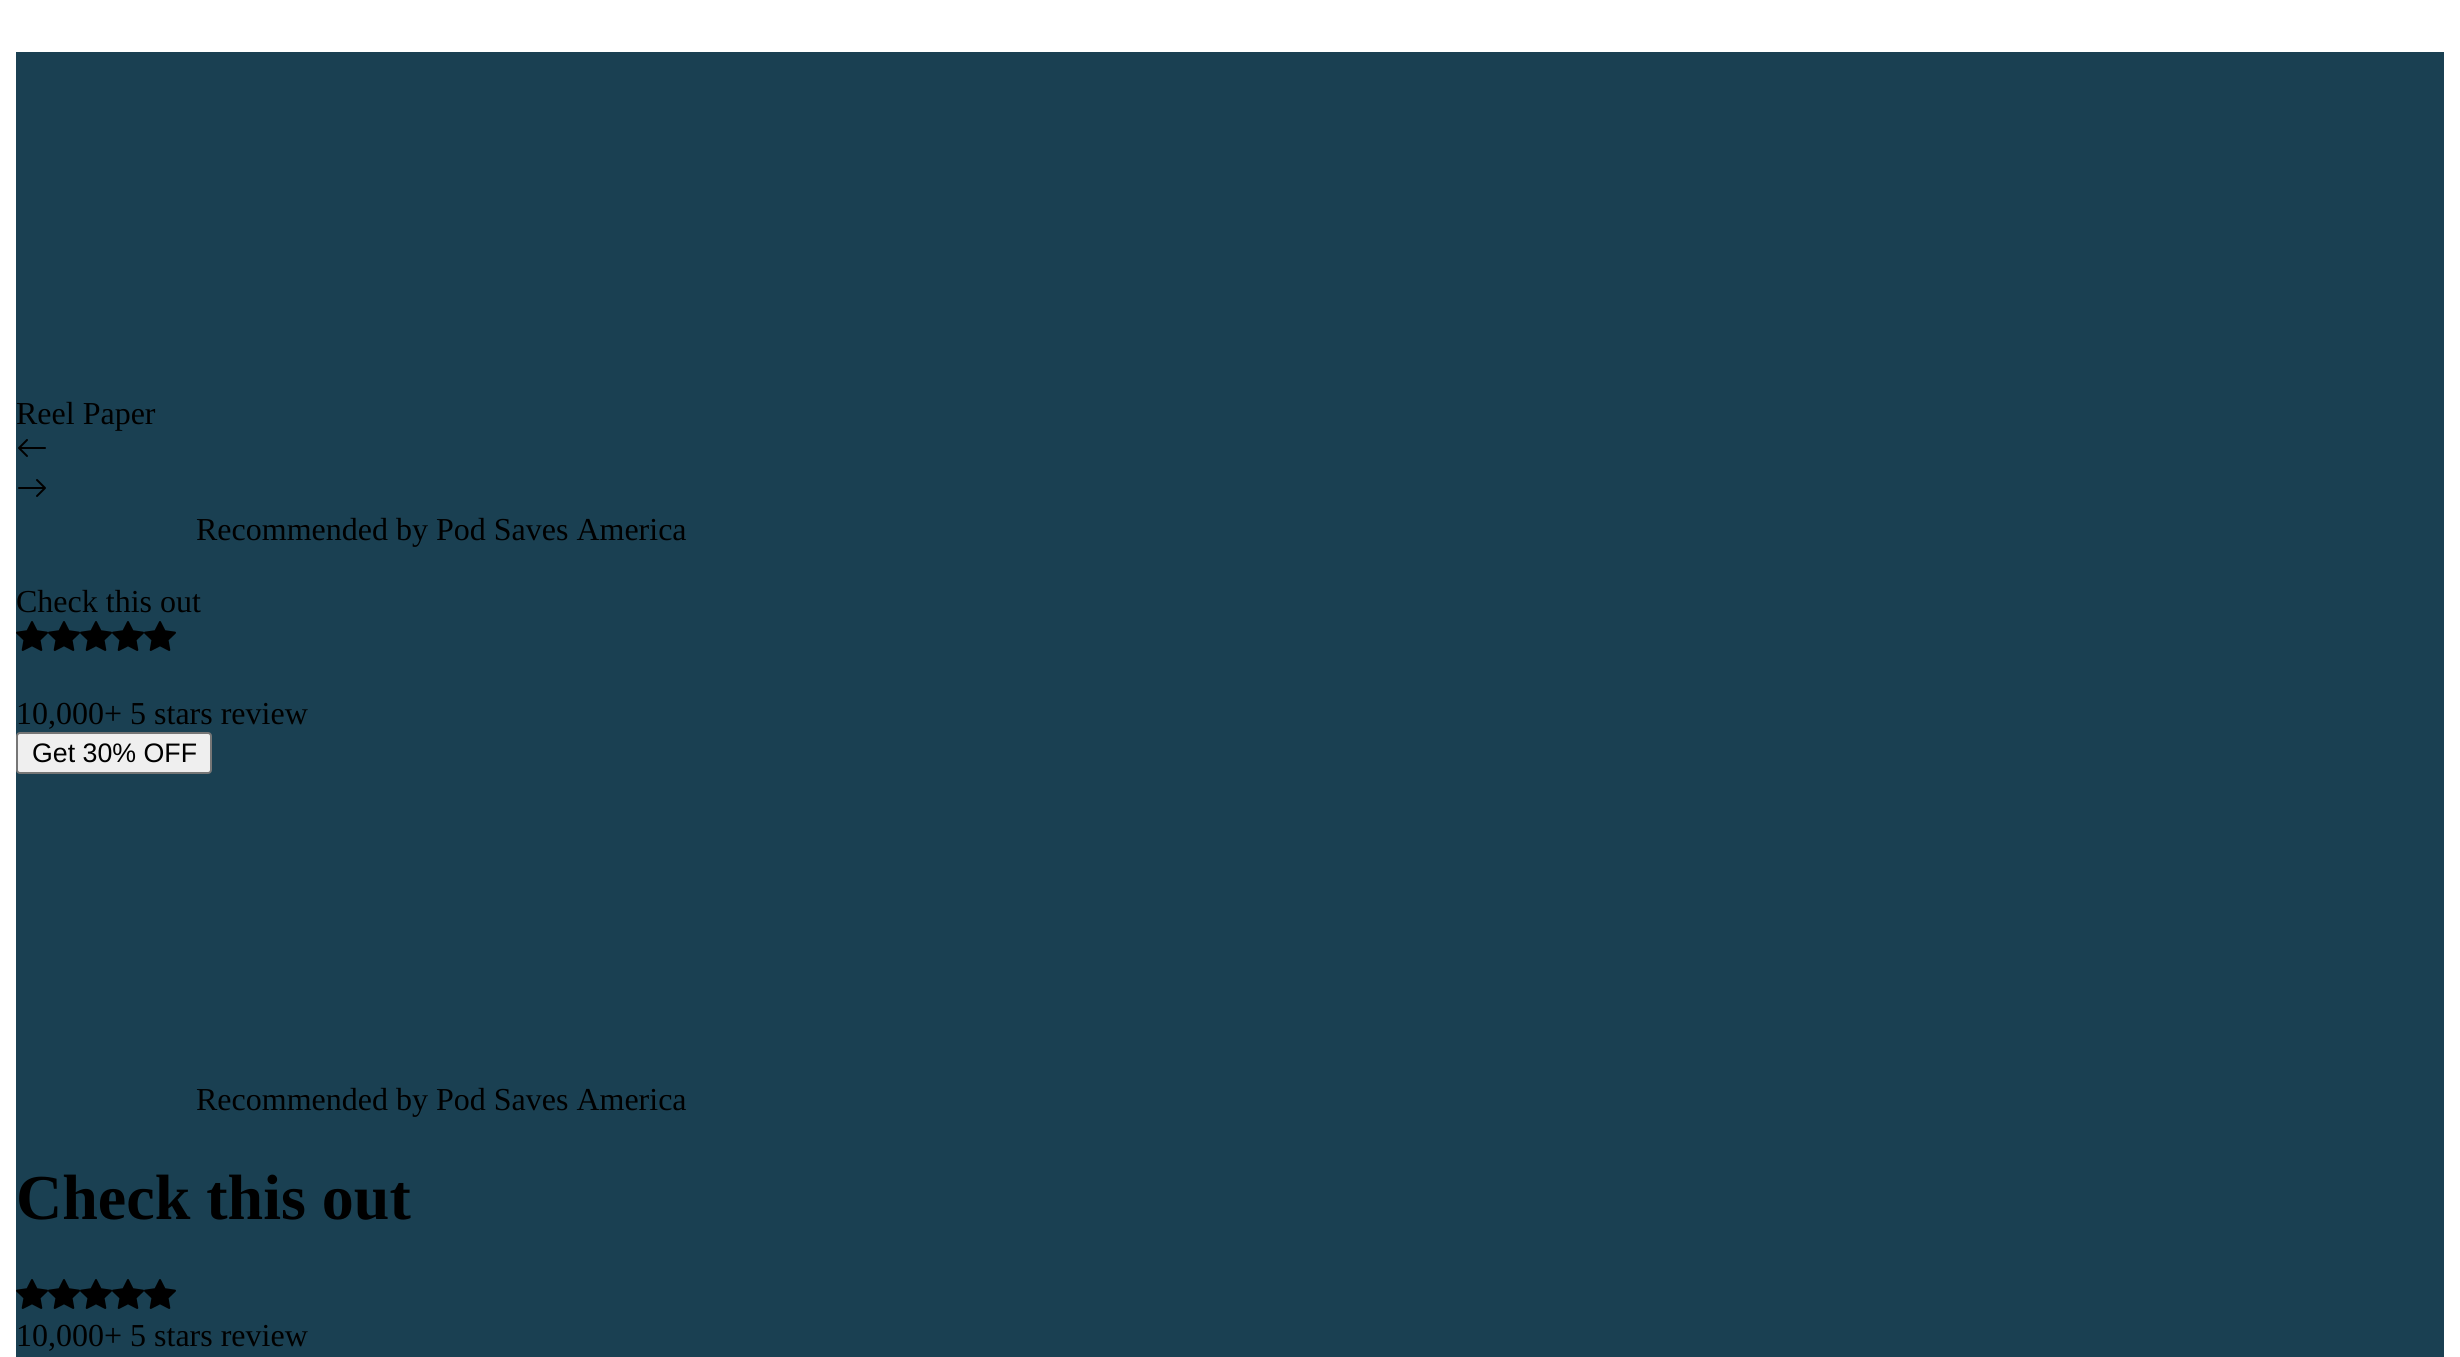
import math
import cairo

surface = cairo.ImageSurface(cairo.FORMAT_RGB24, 2460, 1357)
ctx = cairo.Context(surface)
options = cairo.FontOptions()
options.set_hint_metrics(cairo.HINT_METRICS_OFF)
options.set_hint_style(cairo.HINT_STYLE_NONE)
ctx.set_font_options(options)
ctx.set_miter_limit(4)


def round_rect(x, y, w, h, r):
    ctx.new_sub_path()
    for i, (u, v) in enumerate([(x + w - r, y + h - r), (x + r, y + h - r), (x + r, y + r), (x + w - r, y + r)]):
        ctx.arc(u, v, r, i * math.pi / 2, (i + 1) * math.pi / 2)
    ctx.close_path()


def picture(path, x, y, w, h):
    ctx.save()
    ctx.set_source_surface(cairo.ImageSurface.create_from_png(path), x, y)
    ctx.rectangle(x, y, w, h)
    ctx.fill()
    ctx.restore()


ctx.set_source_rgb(1, 1, 1)
ctx.paint()
ctx.set_source_rgb(0.102, 0.251, 0.322)
ctx.rectangle(16, 52, 2428, 1305)
ctx.fill()
ctx.select_font_face("Liberation Serif")
ctx.set_font_size(32)
ctx.set_source_rgb(0, 0, 0)
ctx.move_to(16, 424)
ctx.show_text("Reel Paper")
picture("img1.png", 18, 439, 28, 18)
picture("img2.png", 18, 479, 28, 18)
ctx.move_to(196, 540)
ctx.show_text("Recommended by Pod Saves America")
ctx.move_to(16, 612)
ctx.show_text("Check this out")
picture("img3.png", 16, 621, 32, 30)
picture("img3.png", 48, 621, 32, 30)
picture("img3.png", 80, 621, 32, 30)
picture("img3.png", 112, 621, 32, 30)
picture("img3.png", 144, 621, 32, 30)
ctx.move_to(16, 724)
ctx.show_text("10,000+ 5 stars review")
ctx.set_source_rgb(0.937, 0.937, 0.937)
round_rect(17, 733, 194, 40, 3)
ctx.fill_preserve()
ctx.set_source_rgb(0.463, 0.463, 0.463)
ctx.stroke()
ctx.select_font_face("Liberation Sans")
ctx.set_font_size(26.75)
ctx.set_source_rgb(0, 0, 0)
ctx.move_to(32, 762)
ctx.show_text("Get 30% OFF")
ctx.select_font_face("Liberation Serif")
ctx.set_font_size(32)
ctx.move_to(196, 1110)
ctx.show_text("Recommended by Pod Saves America")
ctx.select_font_face("Liberation Serif", cairo.FONT_SLANT_NORMAL, cairo.FONT_WEIGHT_BOLD)
ctx.set_font_size(64)
ctx.move_to(16, 1219)
ctx.show_text("Check this out")
picture("img3.png", 16, 1279, 32, 30)
picture("img3.png", 48, 1279, 32, 30)
picture("img3.png", 80, 1279, 32, 30)
picture("img3.png", 112, 1279, 32, 30)
picture("img3.png", 144, 1279, 32, 30)
ctx.select_font_face("Liberation Serif")
ctx.set_font_size(32)
ctx.move_to(16, 1346)
ctx.show_text("10,000+ 5 stars review")
surface.write_to_png("page.png")
